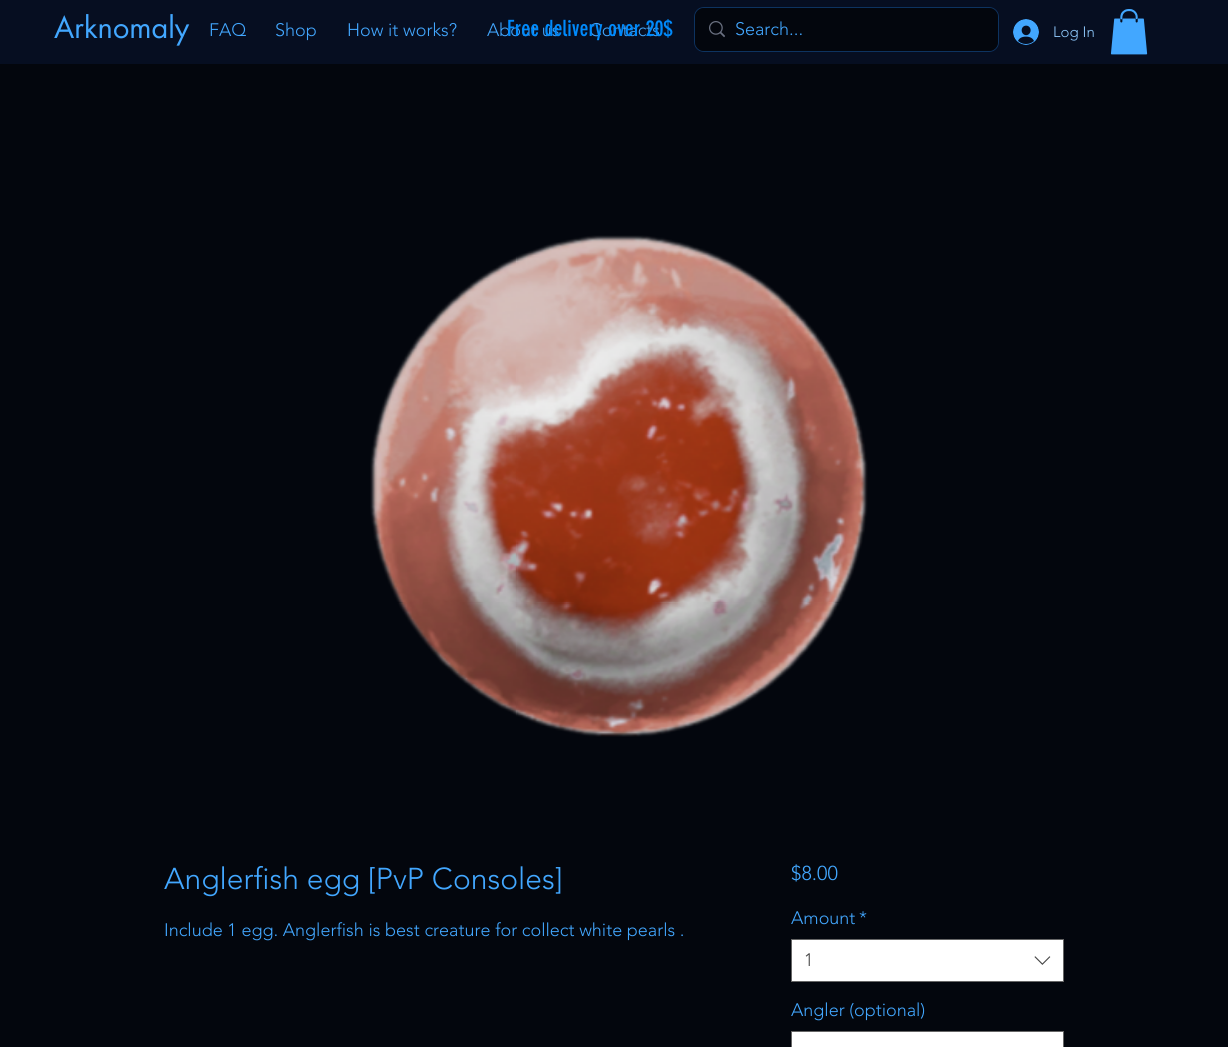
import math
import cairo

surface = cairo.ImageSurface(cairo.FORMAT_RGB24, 1228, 1047)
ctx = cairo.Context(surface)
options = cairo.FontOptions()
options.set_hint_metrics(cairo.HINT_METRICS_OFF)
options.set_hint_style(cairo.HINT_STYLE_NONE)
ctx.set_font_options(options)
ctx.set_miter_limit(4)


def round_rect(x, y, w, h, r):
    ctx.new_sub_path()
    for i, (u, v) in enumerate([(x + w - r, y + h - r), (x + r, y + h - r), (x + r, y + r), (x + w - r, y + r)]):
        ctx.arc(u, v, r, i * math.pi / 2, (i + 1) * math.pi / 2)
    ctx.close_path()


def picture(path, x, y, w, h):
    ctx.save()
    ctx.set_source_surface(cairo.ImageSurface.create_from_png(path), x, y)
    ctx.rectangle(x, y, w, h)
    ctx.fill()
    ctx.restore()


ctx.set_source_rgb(0.012, 0.024, 0.051)
ctx.paint()
ctx.set_source_rgb(0.024, 0.055, 0.129)
ctx.rectangle(0, 0, 1228, 64)
ctx.fill()
ctx.select_font_face("futura")
ctx.set_font_size(29)
ctx.set_source_rgb(0.259, 0.655, 1)
ctx.move_to(54, 38)
ctx.show_text("Arknomaly")
ctx.select_font_face("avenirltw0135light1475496 Light")
ctx.set_font_size(18)
ctx.move_to(209, 36)
ctx.show_text("FAQ")
ctx.move_to(275, 36)
ctx.show_text("Shop")
ctx.move_to(347, 36)
ctx.show_text("How it works?")
ctx.move_to(487, 36)
ctx.show_text("About us")
ctx.move_to(589, 36)
ctx.show_text("Contacts")
ctx.select_font_face("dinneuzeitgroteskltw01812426")
ctx.set_font_size(22)
ctx.set_source_rgb(0, 0.541, 0.988)
ctx.move_to(507, 36)
ctx.show_text("Free delivery over 20$")
round_rect(694.5, 7.5, 304, 44, 9.5)
ctx.set_source_rgba(0.075, 0.294, 0.545, 0.6)
ctx.set_line_width(1)
ctx.stroke()
ctx.set_source_rgb(0.012, 0.024, 0.051)
round_rect(695, 8, 303, 43, 9)
ctx.fill()
picture("img1.png", 709, 21, 16, 17)
ctx.select_font_face("avenirltw0135light1475496 Light")
ctx.set_font_size(18)
ctx.set_source_rgb(0.259, 0.655, 1)
ctx.move_to(735, 35)
ctx.show_text("Search...")
picture("img2.png", 1013, 19, 26, 26)
ctx.set_font_size(15)
ctx.set_source_rgb(0.561, 0.788, 0.988)
ctx.move_to(1053, 37)
ctx.show_text("Log In")
picture("img3.png", 1110, 9, 38, 46)
picture("img4.png", 370, 235, 498, 502)
ctx.set_font_size(30)
ctx.set_source_rgb(0.259, 0.655, 1)
ctx.move_to(164, 889)
ctx.show_text("Anglerfish egg [PvP Consoles]")
ctx.set_font_size(18)
ctx.move_to(164, 936)
ctx.show_text("Include 1 egg. Anglerfish is best creature for collect white pearls .")
ctx.set_font_size(20)
ctx.move_to(791, 880)
ctx.show_text("$8.00")
ctx.set_font_size(18)
ctx.move_to(791, 924)
ctx.show_text("Amount")
ctx.move_to(859, 924)
ctx.show_text("*")
ctx.set_source_rgb(1, 1, 1)
ctx.rectangle(791.5, 939.5, 272, 42)
ctx.fill_preserve()
ctx.set_source_rgb(0.4, 0.4, 0.4)
ctx.stroke()
ctx.set_source_rgb(0.267, 0.267, 0.267)
ctx.move_to(804, 966)
ctx.show_text("1")
picture("img5.png", 1034, 956, 17, 9)
ctx.set_source_rgb(0.259, 0.655, 1)
ctx.move_to(791, 1016)
ctx.show_text("Angler (optional)")
ctx.set_source_rgb(1, 1, 1)
ctx.rectangle(791.5, 1031.5, 272, 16)
ctx.fill_preserve()
ctx.set_source_rgb(0.4, 0.4, 0.4)
ctx.stroke()
surface.write_to_png("page.png")
